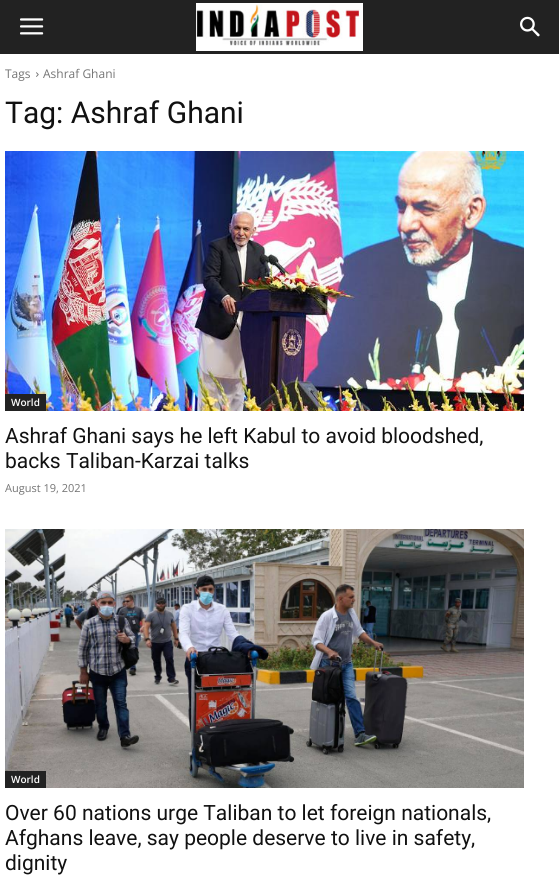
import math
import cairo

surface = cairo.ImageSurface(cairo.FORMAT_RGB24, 559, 885)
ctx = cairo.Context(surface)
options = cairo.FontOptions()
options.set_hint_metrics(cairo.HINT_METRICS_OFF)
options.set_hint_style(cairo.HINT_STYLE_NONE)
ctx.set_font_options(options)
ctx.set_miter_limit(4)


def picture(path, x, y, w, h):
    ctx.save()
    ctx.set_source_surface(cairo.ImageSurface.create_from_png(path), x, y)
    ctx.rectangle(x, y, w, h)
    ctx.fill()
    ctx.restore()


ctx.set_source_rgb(1, 1, 1)
ctx.paint()
ctx.set_source_rgb(0.133, 0.133, 0.133)
ctx.rectangle(0, 0, 559, 54)
ctx.fill()
picture("img1.png", 20, 18, 24, 17)
picture("img2.png", 196, 3, 167, 48)
picture("img3.png", 520, 16, 20, 21)
ctx.select_font_face("Open Sans")
ctx.set_font_size(12)
ctx.set_source_rgb(0.455, 0.455, 0.455)
ctx.move_to(5, 78)
ctx.show_text("Tags")
picture("img4.png", 36, 72, 3, 5)
ctx.move_to(43, 78)
ctx.show_text("Ashraf Ghani")
ctx.select_font_face("Roboto")
ctx.set_font_size(30)
ctx.set_source_rgb(0.067, 0.067, 0.067)
ctx.move_to(5, 123)
ctx.show_text("Tag: Ashraf Ghani")
picture("img5.png", 5, 151, 519, 260)
ctx.set_source_rgb(0.133, 0.133, 0.133)
ctx.rectangle(5, 394, 41, 17)
ctx.fill()
ctx.select_font_face("Open Sans SemiBold")
ctx.set_font_size(10)
ctx.set_source_rgb(1, 1, 1)
ctx.move_to(11, 406)
ctx.show_text("World")
ctx.select_font_face("Roboto")
ctx.set_font_size(21)
ctx.set_source_rgb(0.067, 0.067, 0.067)
ctx.move_to(5, 443)
ctx.show_text("Ashraf Ghani says he left Kabul to avoid bloodshed,")
ctx.move_to(5, 468)
ctx.show_text("backs Taliban-Karzai talks")
ctx.select_font_face("Open Sans")
ctx.set_font_size(11)
ctx.set_source_rgb(0.455, 0.455, 0.455)
ctx.move_to(5, 492)
ctx.show_text("August 19, 2021")
picture("img6.png", 5, 529, 519, 259)
ctx.set_source_rgb(0.133, 0.133, 0.133)
ctx.rectangle(5, 771, 41, 17)
ctx.fill()
ctx.select_font_face("Open Sans SemiBold")
ctx.set_font_size(10)
ctx.set_source_rgb(1, 1, 1)
ctx.move_to(11, 783)
ctx.show_text("World")
ctx.select_font_face("Roboto")
ctx.set_font_size(21)
ctx.set_source_rgb(0.067, 0.067, 0.067)
ctx.move_to(5, 820)
ctx.show_text("Over 60 nations urge Taliban to let foreign nationals,")
ctx.move_to(5, 845)
ctx.show_text("Afghans leave, say people deserve to live in safety,")
ctx.move_to(5, 870)
ctx.show_text("dignity")
surface.write_to_png("page.png")
